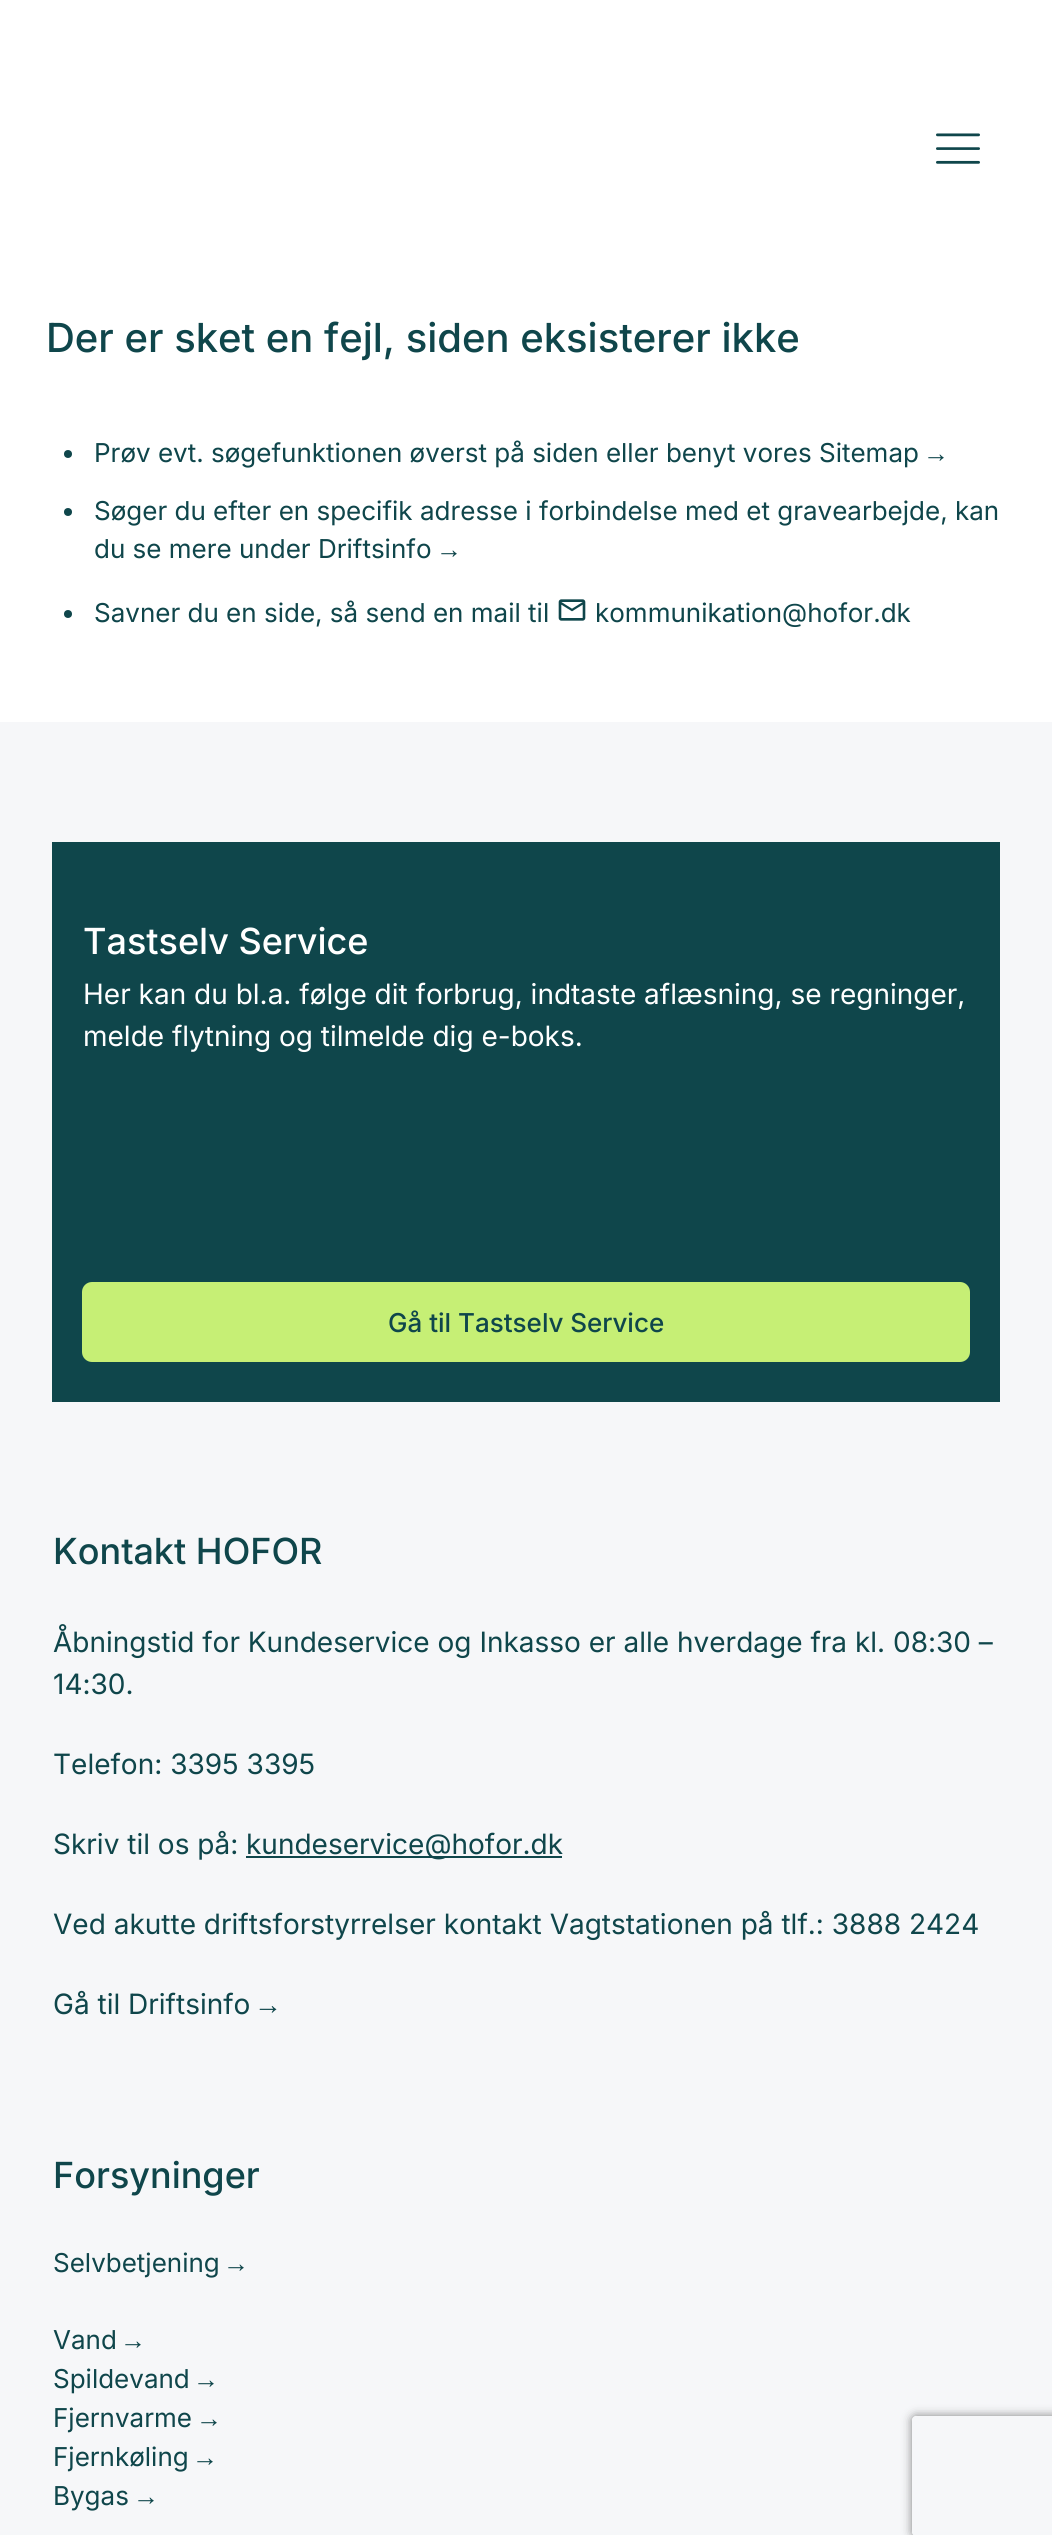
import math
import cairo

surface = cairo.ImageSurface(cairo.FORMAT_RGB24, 1052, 2535)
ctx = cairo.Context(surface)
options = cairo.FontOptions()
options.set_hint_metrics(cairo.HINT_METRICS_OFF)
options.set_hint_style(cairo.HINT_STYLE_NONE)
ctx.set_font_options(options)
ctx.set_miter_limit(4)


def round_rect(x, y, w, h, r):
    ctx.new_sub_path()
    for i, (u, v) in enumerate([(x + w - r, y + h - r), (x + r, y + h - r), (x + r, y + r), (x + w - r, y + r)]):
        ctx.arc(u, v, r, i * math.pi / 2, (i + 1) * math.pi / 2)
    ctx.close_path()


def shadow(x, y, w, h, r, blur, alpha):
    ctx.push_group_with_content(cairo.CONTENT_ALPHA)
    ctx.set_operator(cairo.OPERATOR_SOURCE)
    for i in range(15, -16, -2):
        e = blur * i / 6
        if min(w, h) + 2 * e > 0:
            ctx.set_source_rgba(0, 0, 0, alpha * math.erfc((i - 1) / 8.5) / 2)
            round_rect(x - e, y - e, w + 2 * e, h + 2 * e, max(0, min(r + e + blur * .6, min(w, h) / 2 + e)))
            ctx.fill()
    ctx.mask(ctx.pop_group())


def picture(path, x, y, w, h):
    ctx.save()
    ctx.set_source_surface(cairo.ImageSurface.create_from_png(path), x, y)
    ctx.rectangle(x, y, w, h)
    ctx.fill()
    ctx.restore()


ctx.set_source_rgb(1, 1, 1)
ctx.paint()
picture("img1.png", 936, 133, 44, 31)
ctx.select_font_face("Inter Medium")
ctx.set_font_size(40)
ctx.set_source_rgb(0.059, 0.275, 0.294)
ctx.move_to(46, 352)
ctx.show_text("Der er sket en fejl, siden eksisterer ikke")
ctx.new_path()
ctx.arc(68, 454, 4, 0, 2 * math.pi)
ctx.fill()
ctx.select_font_face("Inter")
ctx.set_font_size(26)
ctx.move_to(94, 462)
ctx.show_text("Prøv evt. søgefunktionen øverst på siden eller benyt vores Sitemap")
ctx.select_font_face("Liberation Serif")
ctx.move_to(923, 462)
ctx.show_text("→")
ctx.new_path()
ctx.arc(68, 512, 4, 0, 2 * math.pi)
ctx.fill()
ctx.select_font_face("Inter")
ctx.move_to(94, 520)
ctx.show_text("Søger du efter en specifik adresse i forbindelse med et gravearbejde, kan")
ctx.move_to(94, 558)
ctx.show_text("du se mere under Driftsinfo")
ctx.select_font_face("Liberation Serif")
ctx.move_to(436, 558)
ctx.show_text("→")
ctx.new_path()
ctx.arc(68, 614, 4, 0, 2 * math.pi)
ctx.fill()
ctx.select_font_face("Inter")
ctx.move_to(94, 622)
ctx.show_text("Savner du en side, så send en mail til")
picture("img2.png", 558, 599, 28, 22)
ctx.move_to(595, 622)
ctx.show_text("kommunikation@hofor.dk")
ctx.set_source_rgb(0.961, 0.965, 0.973)
ctx.rectangle(0, 722, 1052, 1813)
ctx.fill()
ctx.set_source_rgb(0.059, 0.275, 0.294)
ctx.rectangle(52, 842, 948, 560)
ctx.fill()
ctx.select_font_face("Inter Medium")
ctx.set_font_size(36)
ctx.set_source_rgb(1, 1, 1)
ctx.move_to(83, 954)
ctx.show_text("Tastselv Service")
ctx.select_font_face("Inter")
ctx.set_font_size(28)
ctx.move_to(83, 1004)
ctx.show_text("Her kan du bl.a. følge dit forbrug, indtaste aflæsning, se regninger,")
ctx.move_to(83, 1046)
ctx.show_text("melde flytning og tilmelde dig e-boks.")
ctx.set_source_rgb(0.776, 0.937, 0.459)
round_rect(82, 1282, 888, 80, 10)
ctx.fill()
ctx.select_font_face("Inter Medium")
ctx.set_font_size(26)
ctx.set_source_rgb(0.059, 0.275, 0.294)
ctx.move_to(388, 1332)
ctx.show_text("Gå til Tastselv Service")
ctx.set_font_size(36)
ctx.move_to(53, 1564)
ctx.show_text("Kontakt HOFOR")
ctx.select_font_face("Inter")
ctx.set_font_size(28)
ctx.move_to(53, 1652)
ctx.show_text("Åbningstid for Kundeservice og Inkasso er alle hverdage fra kl. 08:30 –")
ctx.move_to(53, 1694)
ctx.show_text("14:30.")
ctx.move_to(53, 1774)
ctx.show_text("Telefon: 3395 3395")
ctx.move_to(53, 1854)
ctx.show_text("Skriv til os på:")
ctx.rectangle(246, 1856, 316, 2)
ctx.fill()
ctx.move_to(246, 1854)
ctx.show_text("kundeservice@hofor.dk")
ctx.move_to(53, 1934)
ctx.show_text("Ved akutte driftsforstyrrelser kontakt Vagtstationen på tlf.: 3888 2424")
ctx.move_to(53, 2014)
ctx.show_text("Gå til Driftsinfo")
ctx.select_font_face("Liberation Serif")
ctx.move_to(254, 2014)
ctx.show_text("→")
ctx.select_font_face("Inter Medium")
ctx.set_font_size(36)
ctx.move_to(53, 2188)
ctx.show_text("Forsyninger")
ctx.select_font_face("Inter")
ctx.set_font_size(26)
ctx.move_to(53, 2272)
ctx.show_text("Selvbetjening")
ctx.select_font_face("Liberation Serif")
ctx.move_to(223, 2272)
ctx.show_text("→")
ctx.select_font_face("Inter")
ctx.move_to(53, 2349)
ctx.show_text("Vand")
ctx.select_font_face("Liberation Serif")
ctx.move_to(120, 2349)
ctx.show_text("→")
ctx.select_font_face("Inter")
ctx.move_to(53, 2388)
ctx.show_text("Spildevand")
ctx.select_font_face("Liberation Serif")
ctx.move_to(193, 2388)
ctx.show_text("→")
ctx.select_font_face("Inter")
ctx.move_to(53, 2427)
ctx.show_text("Fjernvarme")
ctx.select_font_face("Liberation Serif")
ctx.move_to(196, 2427)
ctx.show_text("→")
ctx.select_font_face("Inter")
ctx.move_to(53, 2466)
ctx.show_text("Fjernkøling")
ctx.select_font_face("Liberation Serif")
ctx.move_to(192, 2466)
ctx.show_text("→")
ctx.select_font_face("Inter")
ctx.move_to(53, 2505)
ctx.show_text("Bygas")
ctx.select_font_face("Liberation Serif")
ctx.move_to(133, 2505)
ctx.show_text("→")
ctx.save()
ctx.set_fill_rule(cairo.FILL_RULE_EVEN_ODD)
ctx.new_path()
ctx.move_to(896, 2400)
ctx.line_to(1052, 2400)
ctx.line_to(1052, 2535)
ctx.line_to(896, 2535)
ctx.close_path()
ctx.move_to(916, 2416)
ctx.line_to(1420, 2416)
ctx.curve_to(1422, 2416, 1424, 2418, 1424, 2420)
ctx.line_to(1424, 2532)
ctx.curve_to(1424, 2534, 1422, 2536, 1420, 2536)
ctx.line_to(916, 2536)
ctx.curve_to(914, 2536, 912, 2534, 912, 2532)
ctx.line_to(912, 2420)
ctx.curve_to(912, 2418, 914, 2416, 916, 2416)
ctx.close_path()
ctx.clip()
ctx.set_source_rgb(0.502, 0.502, 0.502)
shadow(912, 2416, 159, 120, 4, 5, 1)
ctx.restore()
surface.write_to_png("page.png")
